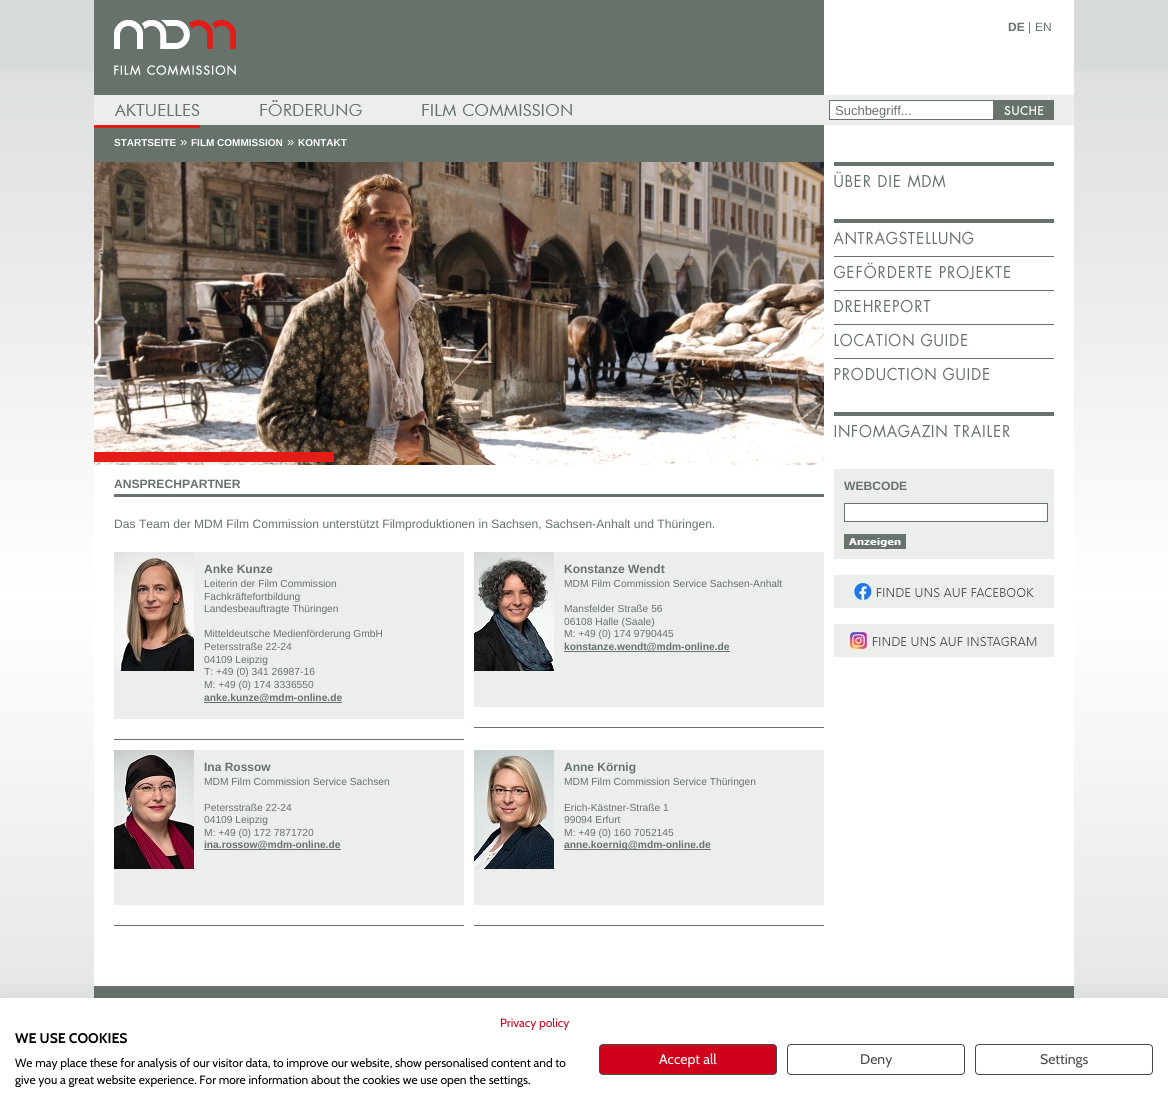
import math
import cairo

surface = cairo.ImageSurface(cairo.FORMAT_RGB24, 1168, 1116)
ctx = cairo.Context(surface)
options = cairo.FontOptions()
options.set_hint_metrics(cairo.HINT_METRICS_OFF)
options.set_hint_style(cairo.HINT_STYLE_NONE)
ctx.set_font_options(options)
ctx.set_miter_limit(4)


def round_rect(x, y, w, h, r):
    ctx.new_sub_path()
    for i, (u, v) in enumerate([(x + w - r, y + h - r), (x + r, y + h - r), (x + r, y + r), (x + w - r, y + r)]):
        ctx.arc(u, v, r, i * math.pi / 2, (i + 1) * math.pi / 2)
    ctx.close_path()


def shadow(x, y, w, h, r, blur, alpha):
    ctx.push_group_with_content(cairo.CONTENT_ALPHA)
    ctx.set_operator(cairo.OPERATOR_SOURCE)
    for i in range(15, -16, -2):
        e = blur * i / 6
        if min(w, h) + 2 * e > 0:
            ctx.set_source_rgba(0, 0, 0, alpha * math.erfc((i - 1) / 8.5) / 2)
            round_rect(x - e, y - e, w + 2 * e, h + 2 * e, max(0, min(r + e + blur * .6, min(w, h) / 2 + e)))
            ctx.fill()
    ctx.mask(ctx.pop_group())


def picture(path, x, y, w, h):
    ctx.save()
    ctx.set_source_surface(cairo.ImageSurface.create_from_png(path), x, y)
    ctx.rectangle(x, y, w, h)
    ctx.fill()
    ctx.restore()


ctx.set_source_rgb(0.847, 0.863, 0.851)
ctx.paint()
picture("img1.png", 0, 71, 1168, 927)
ctx.set_source_rgb(1, 1, 1)
ctx.rectangle(94, 0, 980, 986)
ctx.fill()
picture("img2.png", 94, 0, 730, 95)
ctx.select_font_face("Liberation Sans", cairo.FONT_SLANT_NORMAL, cairo.FONT_WEIGHT_BOLD)
ctx.set_font_size(12)
ctx.set_source_rgb(0.4, 0.447, 0.416)
ctx.move_to(1008, 31)
ctx.show_text("DE")
ctx.select_font_face("Liberation Sans")
ctx.move_to(1028, 31)
ctx.show_text("|")
ctx.move_to(1035, 31)
ctx.show_text("EN")
ctx.set_source_rgb(0.925, 0.933, 0.925)
ctx.rectangle(94, 95, 980, 30)
ctx.fill()
picture("img3.png", 114, 104, 86, 12)
picture("img4.png", 260, 100, 102, 16)
picture("img5.png", 422, 104, 150, 12)
ctx.set_source_rgb(1, 1, 1)
ctx.rectangle(829.5, 100.5, 164, 19)
ctx.fill_preserve()
ctx.set_source_rgb(0.408, 0.451, 0.42)
ctx.set_line_width(1)
ctx.stroke()
ctx.set_font_size(13)
ctx.set_source_rgb(0.4, 0.447, 0.416)
ctx.move_to(835, 115)
ctx.show_text("Suchbegriff...")
picture("img6.png", 994, 100, 60, 20)
ctx.set_source_rgb(0.404, 0.447, 0.416)
ctx.rectangle(94, 125, 730, 37)
ctx.fill()
ctx.set_source_rgb(0.89, 0.11, 0.094)
ctx.rectangle(94, 125, 106, 3)
ctx.fill()
ctx.select_font_face("Liberation Sans", cairo.FONT_SLANT_NORMAL, cairo.FONT_WEIGHT_BOLD)
ctx.set_font_size(10)
ctx.set_source_rgb(1, 1, 1)
ctx.move_to(114, 146)
ctx.show_text("STARTSEITE")
ctx.select_font_face("Liberation Sans")
ctx.set_font_size(13)
ctx.move_to(180, 146)
ctx.show_text("»")
ctx.select_font_face("Liberation Sans", cairo.FONT_SLANT_NORMAL, cairo.FONT_WEIGHT_BOLD)
ctx.set_font_size(10)
ctx.move_to(191, 146)
ctx.show_text("FILM COMMISSION")
ctx.select_font_face("Liberation Sans")
ctx.set_font_size(13)
ctx.move_to(287, 146)
ctx.show_text("»")
ctx.select_font_face("Liberation Sans", cairo.FONT_SLANT_NORMAL, cairo.FONT_WEIGHT_BOLD)
ctx.set_font_size(10)
ctx.move_to(298, 146)
ctx.show_text("KONTAKT")
picture("img7.png", 94, 162, 730, 303)
ctx.set_source_rgb(0.89, 0.11, 0.094)
ctx.rectangle(94, 452, 240, 10)
ctx.fill()
ctx.set_source_rgb(0.404, 0.447, 0.416)
ctx.rectangle(114, 494, 710, 3)
ctx.fill()
ctx.set_font_size(12.1)
ctx.set_source_rgb(0.4, 0.447, 0.416)
ctx.move_to(114, 488)
ctx.show_text("ANSPRECHPARTNER")
ctx.select_font_face("Liberation Sans")
ctx.move_to(114, 528)
ctx.show_text("Das Team der MDM Film Commission unterstützt Filmproduktionen in Sachsen, Sachsen-Anhalt und Thüringen.")
ctx.set_source_rgb(0.404, 0.447, 0.416)
ctx.rectangle(114, 739, 350, 1)
ctx.fill()
ctx.set_source_rgb(0.925, 0.933, 0.925)
ctx.rectangle(114, 552, 350, 167)
ctx.fill()
picture("img8.png", 114, 552, 80, 119)
ctx.select_font_face("Liberation Sans", cairo.FONT_SLANT_NORMAL, cairo.FONT_WEIGHT_BOLD)
ctx.set_font_size(12)
ctx.set_source_rgb(0.4, 0.447, 0.416)
ctx.move_to(204, 573)
ctx.show_text("Anke Kunze")
ctx.select_font_face("Liberation Sans")
ctx.set_font_size(10.25)
ctx.move_to(204, 587)
ctx.show_text("Leiterin der Film Commission")
ctx.move_to(204, 600)
ctx.show_text("Fachkräftefortbildung")
ctx.move_to(204, 612)
ctx.show_text("Landesbeauftragte Thüringen")
ctx.move_to(204, 637)
ctx.show_text("Mitteldeutsche Medienförderung GmbH")
ctx.move_to(204, 650)
ctx.show_text("Petersstraße 22-24")
ctx.move_to(204, 663)
ctx.show_text("04109 Leipzig")
ctx.move_to(204, 675)
ctx.show_text("T: +49 (0) 341 26987-16")
ctx.move_to(204, 688)
ctx.show_text("M: +49 (0) 174 3336550")
ctx.rectangle(204, 702, 138, 1)
ctx.fill()
ctx.select_font_face("Liberation Sans", cairo.FONT_SLANT_NORMAL, cairo.FONT_WEIGHT_BOLD)
ctx.move_to(204, 701)
ctx.show_text("anke.kunze@mdm-online.de")
ctx.set_source_rgb(0.404, 0.447, 0.416)
ctx.rectangle(474, 727, 350, 1)
ctx.fill()
ctx.set_source_rgb(0.925, 0.933, 0.925)
ctx.rectangle(474, 552, 350, 155)
ctx.fill()
picture("img9.png", 474, 552, 80, 119)
ctx.set_font_size(12)
ctx.set_source_rgb(0.4, 0.447, 0.416)
ctx.move_to(564, 573)
ctx.show_text("Konstanze Wendt")
ctx.select_font_face("Liberation Sans")
ctx.set_font_size(10.25)
ctx.move_to(564, 587)
ctx.show_text("MDM Film Commission Service Sachsen-Anhalt")
ctx.move_to(564, 612)
ctx.show_text("Mansfelder Straße 56")
ctx.move_to(564, 625)
ctx.show_text("06108 Halle (Saale)")
ctx.move_to(564, 637)
ctx.show_text("M: +49 (0) 174 9790445")
ctx.rectangle(564, 651, 166, 1)
ctx.fill()
ctx.select_font_face("Liberation Sans", cairo.FONT_SLANT_NORMAL, cairo.FONT_WEIGHT_BOLD)
ctx.move_to(564, 650)
ctx.show_text("konstanze.wendt@mdm-online.de")
ctx.set_source_rgb(0.404, 0.447, 0.416)
ctx.rectangle(114, 925, 350, 1)
ctx.fill()
ctx.set_source_rgb(0.925, 0.933, 0.925)
ctx.rectangle(114, 750, 350, 155)
ctx.fill()
picture("img10.png", 114, 750, 80, 119)
ctx.set_font_size(12)
ctx.set_source_rgb(0.4, 0.447, 0.416)
ctx.move_to(204, 771)
ctx.show_text("Ina Rossow")
ctx.select_font_face("Liberation Sans")
ctx.set_font_size(10.25)
ctx.move_to(204, 785)
ctx.show_text("MDM Film Commission Service Sachsen")
ctx.move_to(204, 811)
ctx.show_text("Petersstraße 22-24")
ctx.move_to(204, 823)
ctx.show_text("04109 Leipzig")
ctx.move_to(204, 836)
ctx.show_text("M: +49 (0) 172 7871720")
ctx.rectangle(204, 849, 137, 1)
ctx.fill()
ctx.select_font_face("Liberation Sans", cairo.FONT_SLANT_NORMAL, cairo.FONT_WEIGHT_BOLD)
ctx.move_to(204, 848)
ctx.show_text("ina.rossow@mdm-online.de")
ctx.set_source_rgb(0.404, 0.447, 0.416)
ctx.rectangle(474, 925, 350, 1)
ctx.fill()
ctx.set_source_rgb(0.925, 0.933, 0.925)
ctx.rectangle(474, 750, 350, 155)
ctx.fill()
picture("img11.png", 474, 750, 80, 119)
ctx.set_font_size(12)
ctx.set_source_rgb(0.4, 0.447, 0.416)
ctx.move_to(564, 771)
ctx.show_text("Anne Körnig")
ctx.select_font_face("Liberation Sans")
ctx.set_font_size(10.25)
ctx.move_to(564, 785)
ctx.show_text("MDM Film Commission Service Thüringen")
ctx.move_to(564, 811)
ctx.show_text("Erich-Kästner-Straße 1")
ctx.move_to(564, 823)
ctx.show_text("99094 Erfurt")
ctx.move_to(564, 836)
ctx.show_text("M: +49 (0) 160 7052145")
ctx.rectangle(564, 849, 147, 1)
ctx.fill()
ctx.select_font_face("Liberation Sans", cairo.FONT_SLANT_NORMAL, cairo.FONT_WEIGHT_BOLD)
ctx.move_to(564, 848)
ctx.show_text("anne.koernig@mdm-online.de")
ctx.set_source_rgb(0.404, 0.447, 0.416)
ctx.rectangle(834, 162, 220, 4)
ctx.fill()
picture("img12.png", 834, 171, 112, 17)
ctx.rectangle(834, 219, 220, 4)
ctx.fill()
picture("img13.png", 834, 231, 140, 14)
ctx.rectangle(834, 256, 220, 1)
ctx.fill()
picture("img14.png", 834, 262, 176, 18)
ctx.rectangle(834, 290, 220, 1)
ctx.fill()
picture("img15.png", 834, 299, 97, 14)
ctx.rectangle(834, 324, 220, 1)
ctx.fill()
picture("img16.png", 834, 333, 133, 14)
ctx.rectangle(834, 358, 220, 1)
ctx.fill()
picture("img17.png", 834, 367, 155, 14)
ctx.rectangle(834, 412, 220, 4)
ctx.fill()
picture("img18.png", 834, 424, 176, 14)
ctx.set_source_rgb(0.925, 0.933, 0.925)
ctx.rectangle(834, 469, 220, 90)
ctx.fill()
ctx.set_font_size(12.1)
ctx.set_source_rgb(0.4, 0.447, 0.416)
ctx.move_to(844, 490)
ctx.show_text("WEBCODE")
ctx.set_source_rgb(1, 1, 1)
ctx.rectangle(844.5, 503.5, 203, 18)
ctx.fill_preserve()
ctx.set_source_rgb(0.408, 0.451, 0.42)
ctx.stroke()
picture("img19.png", 844, 534, 62, 15)
picture("img20.png", 834, 575, 220, 33)
picture("img21.png", 834, 624, 220, 33)
ctx.set_source_rgb(0.404, 0.447, 0.416)
ctx.rectangle(94, 986, 980, 12)
ctx.fill()
ctx.set_source_rgb(0, 0, 0)
shadow(0, 998, 1168, 118, 0, 12, 0.1)
ctx.set_source_rgb(1, 1, 1)
ctx.rectangle(0, 998, 1168, 118)
ctx.fill()
ctx.select_font_face("Cabin")
ctx.set_font_size(12)
ctx.set_source_rgb(0.816, 0.008, 0.106)
ctx.move_to(500, 1027)
ctx.show_text("Privacy policy")
ctx.select_font_face("Cabin", cairo.FONT_SLANT_NORMAL, cairo.FONT_WEIGHT_BOLD)
ctx.set_font_size(14)
ctx.set_source_rgb(0, 0, 0)
ctx.move_to(15, 1043)
ctx.show_text("WE USE COOKIES")
ctx.select_font_face("Cabin")
ctx.set_font_size(12)
ctx.move_to(15, 1067)
ctx.show_text("We may place these for analysis of our visitor data, to improve our website, show personalised content and to")
ctx.move_to(15, 1084)
ctx.show_text("give you a great website experience. For more information about the cookies we use open the settings.")
ctx.set_source_rgb(0.816, 0.008, 0.106)
round_rect(599.5, 1044.5, 177, 30, 3.5)
ctx.fill_preserve()
ctx.set_source_rgb(0.29, 0.29, 0.29)
ctx.stroke()
ctx.set_font_size(14)
ctx.set_source_rgb(1, 1, 1)
ctx.move_to(659, 1064)
ctx.show_text("Accept all")
round_rect(787.5, 1044.5, 177, 30, 3.5)
ctx.set_source_rgb(0.29, 0.29, 0.29)
ctx.stroke()
ctx.move_to(860, 1064)
ctx.show_text("Deny")
round_rect(975.5, 1044.5, 177, 30, 3.5)
ctx.stroke()
ctx.move_to(1040, 1064)
ctx.show_text("Settings")
surface.write_to_png("page.png")
